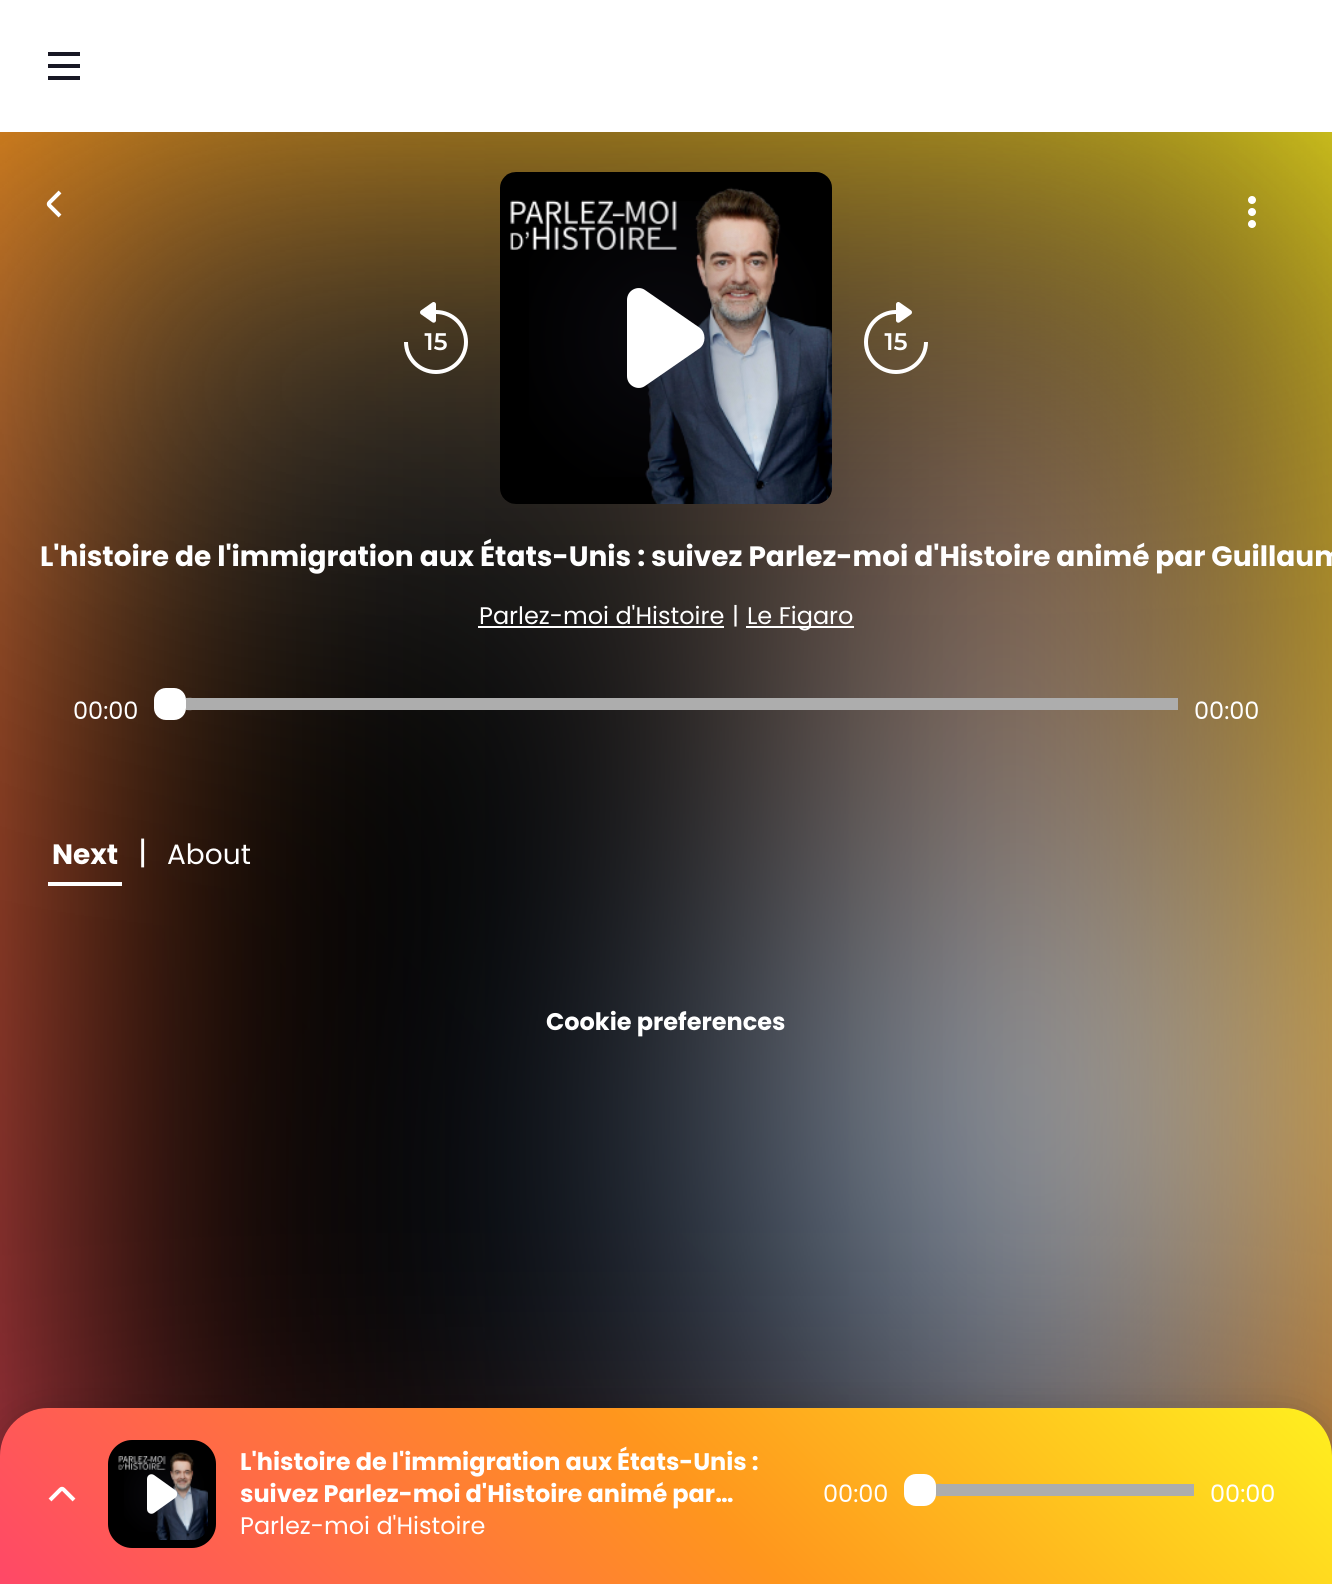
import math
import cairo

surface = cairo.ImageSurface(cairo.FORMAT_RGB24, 1332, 1584)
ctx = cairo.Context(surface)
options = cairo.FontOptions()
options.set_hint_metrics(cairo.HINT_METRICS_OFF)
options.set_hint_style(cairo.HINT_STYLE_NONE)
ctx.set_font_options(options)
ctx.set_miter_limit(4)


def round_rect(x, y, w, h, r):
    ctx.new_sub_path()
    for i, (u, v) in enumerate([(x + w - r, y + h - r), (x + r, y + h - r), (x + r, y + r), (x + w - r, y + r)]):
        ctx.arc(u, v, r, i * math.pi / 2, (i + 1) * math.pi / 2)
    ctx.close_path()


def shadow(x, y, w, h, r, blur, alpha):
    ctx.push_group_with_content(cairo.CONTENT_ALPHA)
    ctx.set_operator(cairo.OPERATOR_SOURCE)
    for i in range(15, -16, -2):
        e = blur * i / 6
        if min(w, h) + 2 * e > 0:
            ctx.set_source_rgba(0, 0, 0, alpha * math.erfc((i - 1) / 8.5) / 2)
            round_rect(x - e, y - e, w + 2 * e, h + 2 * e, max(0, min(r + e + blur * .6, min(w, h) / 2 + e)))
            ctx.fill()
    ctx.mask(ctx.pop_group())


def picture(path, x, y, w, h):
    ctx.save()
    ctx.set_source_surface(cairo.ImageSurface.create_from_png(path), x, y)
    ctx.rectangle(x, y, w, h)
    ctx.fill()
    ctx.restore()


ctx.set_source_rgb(1, 1, 1)
ctx.paint()
ctx.set_source_rgb(0.094, 0.09, 0.141)
ctx.rectangle(48, 52, 32, 4)
ctx.fill()
ctx.rectangle(48, 64, 32, 4)
ctx.fill()
ctx.rectangle(48, 76, 32, 4)
ctx.fill()
gradient = cairo.LinearGradient(-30, 1554, 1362, 162)
gradient.add_color_stop_rgba(0, 1, 0.282, 0.404, 1)
gradient.add_color_stop_rgba(0.52, 1, 0.588, 0.114, 1)
gradient.add_color_stop_rgba(1, 1, 0.941, 0.122, 1)
ctx.set_source(gradient)
ctx.rectangle(0, 132, 1332, 1324)
ctx.fill()
picture("img1.png", 0, 132, 1332, 1324)
picture("img2.png", 500, 172, 332, 332)
gradient = cairo.RadialGradient(666, 338, 0, 666, 338, 166)
gradient.add_color_stop_rgba(0, 0.094, 0.09, 0.141, 0.4)
gradient.add_color_stop_rgba(1, 0.094, 0.09, 0.141, 0)
ctx.set_source(gradient)
ctx.rectangle(529, 201, 287, 276)
ctx.fill()
ctx.set_source_rgb(1, 1, 1)
ctx.new_path()
ctx.move_to(627, 376)
ctx.line_to(627, 300)
ctx.curve_to(627, 290, 638, 285, 645, 290)
ctx.line_to(700, 328)
ctx.curve_to(706, 333, 706, 343, 700, 348)
ctx.line_to(645, 386)
ctx.curve_to(638, 391, 627, 386, 627, 376)
ctx.close_path()
ctx.fill()
ctx.new_path()
ctx.move_to(60, 192)
ctx.line_to(49.5, 202.5)
ctx.curve_to(48.5, 203.5, 48.5, 204.5, 49.5, 205.5)
ctx.line_to(60, 216)
ctx.set_line_width(4)
ctx.stroke()
picture("img3.png", 1248, 196, 8, 32)
picture("img4.png", 404, 302, 64, 72)
picture("img5.png", 864, 302, 64, 72)
ctx.select_font_face("Poppins", cairo.FONT_SLANT_NORMAL, cairo.FONT_WEIGHT_BOLD)
ctx.set_font_size(28)
ctx.move_to(40, 566)
ctx.show_text("L'histoire de l'immigration aux États-Unis : suivez Parlez-moi d'Histoire animé par Guillaum")
ctx.select_font_face("Poppins")
ctx.set_font_size(24)
ctx.move_to(479, 624)
ctx.show_text("Parlez-moi d'Histoire")
ctx.rectangle(478, 626, 246, 2)
ctx.fill()
ctx.move_to(732, 624)
ctx.show_text("|")
ctx.rectangle(746, 626, 108, 2)
ctx.fill()
ctx.move_to(747, 624)
ctx.show_text("Le Figaro")
ctx.move_to(73, 719)
ctx.show_text("00:00")
ctx.set_source_rgb(0.678, 0.678, 0.678)
ctx.rectangle(1176, 698, 2, 12)
ctx.fill()
round_rect(1166, 698, 12, 12, 2)
ctx.fill()
round_rect(1164, 698, 12, 12, 2)
ctx.fill()
round_rect(1162, 698, 12, 12, 2)
ctx.fill()
round_rect(1160, 698, 12, 12, 2)
ctx.fill()
round_rect(1158, 698, 12, 12, 2)
ctx.fill()
round_rect(1156, 698, 12, 12, 2)
ctx.fill()
round_rect(1154, 698, 12, 12, 2)
ctx.fill()
round_rect(1152, 698, 12, 12, 2)
ctx.fill()
round_rect(1150, 698, 12, 12, 2)
ctx.fill()
round_rect(1148, 698, 12, 12, 2)
ctx.fill()
round_rect(1146, 698, 12, 12, 2)
ctx.fill()
round_rect(1144, 698, 12, 12, 2)
ctx.fill()
round_rect(1142, 698, 12, 12, 2)
ctx.fill()
round_rect(1140, 698, 12, 12, 2)
ctx.fill()
round_rect(1138, 698, 12, 12, 2)
ctx.fill()
round_rect(1136, 698, 12, 12, 2)
ctx.fill()
round_rect(1134, 698, 12, 12, 2)
ctx.fill()
round_rect(1132, 698, 12, 12, 2)
ctx.fill()
round_rect(1130, 698, 12, 12, 2)
ctx.fill()
round_rect(1128, 698, 12, 12, 2)
ctx.fill()
round_rect(1126, 698, 12, 12, 2)
ctx.fill()
round_rect(1124, 698, 12, 12, 2)
ctx.fill()
round_rect(1122, 698, 12, 12, 2)
ctx.fill()
round_rect(1120, 698, 12, 12, 2)
ctx.fill()
round_rect(1118, 698, 12, 12, 2)
ctx.fill()
round_rect(1116, 698, 12, 12, 2)
ctx.fill()
round_rect(1114, 698, 12, 12, 2)
ctx.fill()
round_rect(1112, 698, 12, 12, 2)
ctx.fill()
round_rect(1110, 698, 12, 12, 2)
ctx.fill()
round_rect(1108, 698, 12, 12, 2)
ctx.fill()
round_rect(1106, 698, 12, 12, 2)
ctx.fill()
round_rect(1104, 698, 12, 12, 2)
ctx.fill()
round_rect(1102, 698, 12, 12, 2)
ctx.fill()
round_rect(1100, 698, 12, 12, 2)
ctx.fill()
round_rect(1098, 698, 12, 12, 2)
ctx.fill()
round_rect(1096, 698, 12, 12, 2)
ctx.fill()
round_rect(1094, 698, 12, 12, 2)
ctx.fill()
round_rect(1092, 698, 12, 12, 2)
ctx.fill()
round_rect(1090, 698, 12, 12, 2)
ctx.fill()
round_rect(1088, 698, 12, 12, 2)
ctx.fill()
round_rect(1086, 698, 12, 12, 2)
ctx.fill()
round_rect(1084, 698, 12, 12, 2)
ctx.fill()
round_rect(1082, 698, 12, 12, 2)
ctx.fill()
round_rect(1080, 698, 12, 12, 2)
ctx.fill()
round_rect(1078, 698, 12, 12, 2)
ctx.fill()
round_rect(1076, 698, 12, 12, 2)
ctx.fill()
round_rect(1074, 698, 12, 12, 2)
ctx.fill()
round_rect(1072, 698, 12, 12, 2)
ctx.fill()
round_rect(1070, 698, 12, 12, 2)
ctx.fill()
round_rect(1068, 698, 12, 12, 2)
ctx.fill()
round_rect(1066, 698, 12, 12, 2)
ctx.fill()
round_rect(1064, 698, 12, 12, 2)
ctx.fill()
round_rect(1062, 698, 12, 12, 2)
ctx.fill()
round_rect(1060, 698, 12, 12, 2)
ctx.fill()
round_rect(1058, 698, 12, 12, 2)
ctx.fill()
round_rect(1056, 698, 12, 12, 2)
ctx.fill()
round_rect(1054, 698, 12, 12, 2)
ctx.fill()
round_rect(1052, 698, 12, 12, 2)
ctx.fill()
round_rect(1050, 698, 12, 12, 2)
ctx.fill()
round_rect(1048, 698, 12, 12, 2)
ctx.fill()
round_rect(1046, 698, 12, 12, 2)
ctx.fill()
round_rect(1044, 698, 12, 12, 2)
ctx.fill()
round_rect(1042, 698, 12, 12, 2)
ctx.fill()
round_rect(1040, 698, 12, 12, 2)
ctx.fill()
round_rect(1038, 698, 12, 12, 2)
ctx.fill()
round_rect(1036, 698, 12, 12, 2)
ctx.fill()
round_rect(1034, 698, 12, 12, 2)
ctx.fill()
round_rect(1032, 698, 12, 12, 2)
ctx.fill()
round_rect(1030, 698, 12, 12, 2)
ctx.fill()
round_rect(1028, 698, 12, 12, 2)
ctx.fill()
round_rect(1026, 698, 12, 12, 2)
ctx.fill()
round_rect(1024, 698, 12, 12, 2)
ctx.fill()
round_rect(1022, 698, 12, 12, 2)
ctx.fill()
round_rect(1020, 698, 12, 12, 2)
ctx.fill()
round_rect(1018, 698, 12, 12, 2)
ctx.fill()
round_rect(1016, 698, 12, 12, 2)
ctx.fill()
round_rect(1014, 698, 12, 12, 2)
ctx.fill()
round_rect(1012, 698, 12, 12, 2)
ctx.fill()
round_rect(1010, 698, 12, 12, 2)
ctx.fill()
round_rect(1008, 698, 12, 12, 2)
ctx.fill()
round_rect(1006, 698, 12, 12, 2)
ctx.fill()
round_rect(1004, 698, 12, 12, 2)
ctx.fill()
round_rect(1002, 698, 12, 12, 2)
ctx.fill()
round_rect(1000, 698, 12, 12, 2)
ctx.fill()
round_rect(998, 698, 12, 12, 2)
ctx.fill()
round_rect(996, 698, 12, 12, 2)
ctx.fill()
round_rect(994, 698, 12, 12, 2)
ctx.fill()
round_rect(992, 698, 12, 12, 2)
ctx.fill()
round_rect(990, 698, 12, 12, 2)
ctx.fill()
round_rect(988, 698, 12, 12, 2)
ctx.fill()
round_rect(986, 698, 12, 12, 2)
ctx.fill()
round_rect(984, 698, 12, 12, 2)
ctx.fill()
round_rect(982, 698, 12, 12, 2)
ctx.fill()
round_rect(980, 698, 12, 12, 2)
ctx.fill()
round_rect(978, 698, 12, 12, 2)
ctx.fill()
round_rect(976, 698, 12, 12, 2)
ctx.fill()
round_rect(974, 698, 12, 12, 2)
ctx.fill()
round_rect(972, 698, 12, 12, 2)
ctx.fill()
round_rect(970, 698, 12, 12, 2)
ctx.fill()
round_rect(968, 698, 12, 12, 2)
ctx.fill()
round_rect(966, 698, 12, 12, 2)
ctx.fill()
round_rect(964, 698, 12, 12, 2)
ctx.fill()
round_rect(962, 698, 12, 12, 2)
ctx.fill()
round_rect(960, 698, 12, 12, 2)
ctx.fill()
round_rect(958, 698, 12, 12, 2)
ctx.fill()
round_rect(956, 698, 12, 12, 2)
ctx.fill()
round_rect(954, 698, 12, 12, 2)
ctx.fill()
round_rect(952, 698, 12, 12, 2)
ctx.fill()
round_rect(950, 698, 12, 12, 2)
ctx.fill()
round_rect(948, 698, 12, 12, 2)
ctx.fill()
round_rect(946, 698, 12, 12, 2)
ctx.fill()
round_rect(944, 698, 12, 12, 2)
ctx.fill()
round_rect(942, 698, 12, 12, 2)
ctx.fill()
round_rect(940, 698, 12, 12, 2)
ctx.fill()
round_rect(938, 698, 12, 12, 2)
ctx.fill()
round_rect(936, 698, 12, 12, 2)
ctx.fill()
round_rect(934, 698, 12, 12, 2)
ctx.fill()
round_rect(932, 698, 12, 12, 2)
ctx.fill()
round_rect(930, 698, 12, 12, 2)
ctx.fill()
round_rect(928, 698, 12, 12, 2)
ctx.fill()
round_rect(926, 698, 12, 12, 2)
ctx.fill()
round_rect(924, 698, 12, 12, 2)
ctx.fill()
round_rect(922, 698, 12, 12, 2)
ctx.fill()
round_rect(920, 698, 12, 12, 2)
ctx.fill()
round_rect(918, 698, 12, 12, 2)
ctx.fill()
round_rect(916, 698, 12, 12, 2)
ctx.fill()
round_rect(914, 698, 12, 12, 2)
ctx.fill()
round_rect(912, 698, 12, 12, 2)
ctx.fill()
round_rect(910, 698, 12, 12, 2)
ctx.fill()
round_rect(908, 698, 12, 12, 2)
ctx.fill()
round_rect(906, 698, 12, 12, 2)
ctx.fill()
round_rect(904, 698, 12, 12, 2)
ctx.fill()
round_rect(902, 698, 12, 12, 2)
ctx.fill()
round_rect(900, 698, 12, 12, 2)
ctx.fill()
round_rect(898, 698, 12, 12, 2)
ctx.fill()
round_rect(896, 698, 12, 12, 2)
ctx.fill()
round_rect(894, 698, 12, 12, 2)
ctx.fill()
round_rect(892, 698, 12, 12, 2)
ctx.fill()
round_rect(890, 698, 12, 12, 2)
ctx.fill()
round_rect(888, 698, 12, 12, 2)
ctx.fill()
round_rect(886, 698, 12, 12, 2)
ctx.fill()
round_rect(884, 698, 12, 12, 2)
ctx.fill()
round_rect(882, 698, 12, 12, 2)
ctx.fill()
round_rect(880, 698, 12, 12, 2)
ctx.fill()
round_rect(878, 698, 12, 12, 2)
ctx.fill()
round_rect(876, 698, 12, 12, 2)
ctx.fill()
round_rect(874, 698, 12, 12, 2)
ctx.fill()
round_rect(872, 698, 12, 12, 2)
ctx.fill()
round_rect(870, 698, 12, 12, 2)
ctx.fill()
round_rect(868, 698, 12, 12, 2)
ctx.fill()
round_rect(866, 698, 12, 12, 2)
ctx.fill()
round_rect(864, 698, 12, 12, 2)
ctx.fill()
round_rect(862, 698, 12, 12, 2)
ctx.fill()
round_rect(860, 698, 12, 12, 2)
ctx.fill()
round_rect(858, 698, 12, 12, 2)
ctx.fill()
round_rect(856, 698, 12, 12, 2)
ctx.fill()
round_rect(854, 698, 12, 12, 2)
ctx.fill()
round_rect(852, 698, 12, 12, 2)
ctx.fill()
round_rect(850, 698, 12, 12, 2)
ctx.fill()
round_rect(848, 698, 12, 12, 2)
ctx.fill()
round_rect(846, 698, 12, 12, 2)
ctx.fill()
round_rect(844, 698, 12, 12, 2)
ctx.fill()
round_rect(842, 698, 12, 12, 2)
ctx.fill()
round_rect(840, 698, 12, 12, 2)
ctx.fill()
round_rect(838, 698, 12, 12, 2)
ctx.fill()
round_rect(836, 698, 12, 12, 2)
ctx.fill()
round_rect(834, 698, 12, 12, 2)
ctx.fill()
round_rect(832, 698, 12, 12, 2)
ctx.fill()
round_rect(830, 698, 12, 12, 2)
ctx.fill()
round_rect(828, 698, 12, 12, 2)
ctx.fill()
round_rect(826, 698, 12, 12, 2)
ctx.fill()
round_rect(824, 698, 12, 12, 2)
ctx.fill()
round_rect(822, 698, 12, 12, 2)
ctx.fill()
round_rect(820, 698, 12, 12, 2)
ctx.fill()
round_rect(818, 698, 12, 12, 2)
ctx.fill()
round_rect(816, 698, 12, 12, 2)
ctx.fill()
round_rect(814, 698, 12, 12, 2)
ctx.fill()
round_rect(812, 698, 12, 12, 2)
ctx.fill()
round_rect(810, 698, 12, 12, 2)
ctx.fill()
round_rect(808, 698, 12, 12, 2)
ctx.fill()
round_rect(806, 698, 12, 12, 2)
ctx.fill()
round_rect(804, 698, 12, 12, 2)
ctx.fill()
round_rect(802, 698, 12, 12, 2)
ctx.fill()
round_rect(800, 698, 12, 12, 2)
ctx.fill()
round_rect(798, 698, 12, 12, 2)
ctx.fill()
round_rect(796, 698, 12, 12, 2)
ctx.fill()
round_rect(794, 698, 12, 12, 2)
ctx.fill()
round_rect(792, 698, 12, 12, 2)
ctx.fill()
round_rect(790, 698, 12, 12, 2)
ctx.fill()
round_rect(788, 698, 12, 12, 2)
ctx.fill()
round_rect(786, 698, 12, 12, 2)
ctx.fill()
round_rect(784, 698, 12, 12, 2)
ctx.fill()
round_rect(782, 698, 12, 12, 2)
ctx.fill()
round_rect(780, 698, 12, 12, 2)
ctx.fill()
round_rect(778, 698, 12, 12, 2)
ctx.fill()
round_rect(776, 698, 12, 12, 2)
ctx.fill()
round_rect(774, 698, 12, 12, 2)
ctx.fill()
round_rect(772, 698, 12, 12, 2)
ctx.fill()
round_rect(770, 698, 12, 12, 2)
ctx.fill()
round_rect(768, 698, 12, 12, 2)
ctx.fill()
round_rect(766, 698, 12, 12, 2)
ctx.fill()
round_rect(764, 698, 12, 12, 2)
ctx.fill()
round_rect(762, 698, 12, 12, 2)
ctx.fill()
round_rect(760, 698, 12, 12, 2)
ctx.fill()
round_rect(758, 698, 12, 12, 2)
ctx.fill()
round_rect(756, 698, 12, 12, 2)
ctx.fill()
round_rect(754, 698, 12, 12, 2)
ctx.fill()
round_rect(752, 698, 12, 12, 2)
ctx.fill()
round_rect(750, 698, 12, 12, 2)
ctx.fill()
round_rect(748, 698, 12, 12, 2)
ctx.fill()
round_rect(746, 698, 12, 12, 2)
ctx.fill()
round_rect(744, 698, 12, 12, 2)
ctx.fill()
round_rect(742, 698, 12, 12, 2)
ctx.fill()
round_rect(740, 698, 12, 12, 2)
ctx.fill()
round_rect(738, 698, 12, 12, 2)
ctx.fill()
round_rect(736, 698, 12, 12, 2)
ctx.fill()
round_rect(734, 698, 12, 12, 2)
ctx.fill()
round_rect(732, 698, 12, 12, 2)
ctx.fill()
round_rect(730, 698, 12, 12, 2)
ctx.fill()
round_rect(728, 698, 12, 12, 2)
ctx.fill()
round_rect(726, 698, 12, 12, 2)
ctx.fill()
round_rect(724, 698, 12, 12, 2)
ctx.fill()
round_rect(722, 698, 12, 12, 2)
ctx.fill()
round_rect(720, 698, 12, 12, 2)
ctx.fill()
round_rect(718, 698, 12, 12, 2)
ctx.fill()
round_rect(716, 698, 12, 12, 2)
ctx.fill()
round_rect(714, 698, 12, 12, 2)
ctx.fill()
round_rect(712, 698, 12, 12, 2)
ctx.fill()
round_rect(710, 698, 12, 12, 2)
ctx.fill()
round_rect(708, 698, 12, 12, 2)
ctx.fill()
round_rect(706, 698, 12, 12, 2)
ctx.fill()
round_rect(704, 698, 12, 12, 2)
ctx.fill()
round_rect(702, 698, 12, 12, 2)
ctx.fill()
round_rect(700, 698, 12, 12, 2)
ctx.fill()
round_rect(698, 698, 12, 12, 2)
ctx.fill()
round_rect(696, 698, 12, 12, 2)
ctx.fill()
round_rect(694, 698, 12, 12, 2)
ctx.fill()
round_rect(692, 698, 12, 12, 2)
ctx.fill()
round_rect(690, 698, 12, 12, 2)
ctx.fill()
round_rect(688, 698, 12, 12, 2)
ctx.fill()
round_rect(686, 698, 12, 12, 2)
ctx.fill()
round_rect(684, 698, 12, 12, 2)
ctx.fill()
round_rect(682, 698, 12, 12, 2)
ctx.fill()
round_rect(680, 698, 12, 12, 2)
ctx.fill()
round_rect(678, 698, 12, 12, 2)
ctx.fill()
round_rect(676, 698, 12, 12, 2)
ctx.fill()
round_rect(674, 698, 12, 12, 2)
ctx.fill()
round_rect(672, 698, 12, 12, 2)
ctx.fill()
round_rect(670, 698, 12, 12, 2)
ctx.fill()
round_rect(668, 698, 12, 12, 2)
ctx.fill()
round_rect(666, 698, 12, 12, 2)
ctx.fill()
round_rect(664, 698, 12, 12, 2)
ctx.fill()
round_rect(662, 698, 12, 12, 2)
ctx.fill()
round_rect(660, 698, 12, 12, 2)
ctx.fill()
round_rect(658, 698, 12, 12, 2)
ctx.fill()
round_rect(656, 698, 12, 12, 2)
ctx.fill()
round_rect(654, 698, 12, 12, 2)
ctx.fill()
round_rect(652, 698, 12, 12, 2)
ctx.fill()
round_rect(650, 698, 12, 12, 2)
ctx.fill()
round_rect(648, 698, 12, 12, 2)
ctx.fill()
round_rect(646, 698, 12, 12, 2)
ctx.fill()
round_rect(644, 698, 12, 12, 2)
ctx.fill()
round_rect(642, 698, 12, 12, 2)
ctx.fill()
round_rect(640, 698, 12, 12, 2)
ctx.fill()
round_rect(638, 698, 12, 12, 2)
ctx.fill()
round_rect(636, 698, 12, 12, 2)
ctx.fill()
round_rect(634, 698, 12, 12, 2)
ctx.fill()
round_rect(632, 698, 12, 12, 2)
ctx.fill()
round_rect(630, 698, 12, 12, 2)
ctx.fill()
round_rect(628, 698, 12, 12, 2)
ctx.fill()
round_rect(626, 698, 12, 12, 2)
ctx.fill()
round_rect(624, 698, 12, 12, 2)
ctx.fill()
round_rect(622, 698, 12, 12, 2)
ctx.fill()
round_rect(620, 698, 12, 12, 2)
ctx.fill()
round_rect(618, 698, 12, 12, 2)
ctx.fill()
round_rect(616, 698, 12, 12, 2)
ctx.fill()
round_rect(614, 698, 12, 12, 2)
ctx.fill()
round_rect(612, 698, 12, 12, 2)
ctx.fill()
round_rect(610, 698, 12, 12, 2)
ctx.fill()
round_rect(608, 698, 12, 12, 2)
ctx.fill()
round_rect(606, 698, 12, 12, 2)
ctx.fill()
round_rect(604, 698, 12, 12, 2)
ctx.fill()
round_rect(602, 698, 12, 12, 2)
ctx.fill()
round_rect(600, 698, 12, 12, 2)
ctx.fill()
round_rect(598, 698, 12, 12, 2)
ctx.fill()
round_rect(596, 698, 12, 12, 2)
ctx.fill()
round_rect(594, 698, 12, 12, 2)
ctx.fill()
round_rect(592, 698, 12, 12, 2)
ctx.fill()
round_rect(590, 698, 12, 12, 2)
ctx.fill()
round_rect(588, 698, 12, 12, 2)
ctx.fill()
round_rect(586, 698, 12, 12, 2)
ctx.fill()
round_rect(584, 698, 12, 12, 2)
ctx.fill()
round_rect(582, 698, 12, 12, 2)
ctx.fill()
round_rect(580, 698, 12, 12, 2)
ctx.fill()
round_rect(578, 698, 12, 12, 2)
ctx.fill()
round_rect(576, 698, 12, 12, 2)
ctx.fill()
round_rect(574, 698, 12, 12, 2)
ctx.fill()
round_rect(572, 698, 12, 12, 2)
ctx.fill()
round_rect(570, 698, 12, 12, 2)
ctx.fill()
round_rect(568, 698, 12, 12, 2)
ctx.fill()
round_rect(566, 698, 12, 12, 2)
ctx.fill()
round_rect(564, 698, 12, 12, 2)
ctx.fill()
round_rect(562, 698, 12, 12, 2)
ctx.fill()
round_rect(560, 698, 12, 12, 2)
ctx.fill()
round_rect(558, 698, 12, 12, 2)
ctx.fill()
round_rect(556, 698, 12, 12, 2)
ctx.fill()
round_rect(554, 698, 12, 12, 2)
ctx.fill()
round_rect(552, 698, 12, 12, 2)
ctx.fill()
round_rect(550, 698, 12, 12, 2)
ctx.fill()
round_rect(548, 698, 12, 12, 2)
ctx.fill()
round_rect(546, 698, 12, 12, 2)
ctx.fill()
round_rect(544, 698, 12, 12, 2)
ctx.fill()
round_rect(542, 698, 12, 12, 2)
ctx.fill()
round_rect(540, 698, 12, 12, 2)
ctx.fill()
round_rect(538, 698, 12, 12, 2)
ctx.fill()
round_rect(536, 698, 12, 12, 2)
ctx.fill()
round_rect(534, 698, 12, 12, 2)
ctx.fill()
round_rect(532, 698, 12, 12, 2)
ctx.fill()
round_rect(530, 698, 12, 12, 2)
ctx.fill()
round_rect(528, 698, 12, 12, 2)
ctx.fill()
round_rect(526, 698, 12, 12, 2)
ctx.fill()
round_rect(524, 698, 12, 12, 2)
ctx.fill()
round_rect(522, 698, 12, 12, 2)
ctx.fill()
round_rect(520, 698, 12, 12, 2)
ctx.fill()
round_rect(518, 698, 12, 12, 2)
ctx.fill()
round_rect(516, 698, 12, 12, 2)
ctx.fill()
round_rect(514, 698, 12, 12, 2)
ctx.fill()
round_rect(512, 698, 12, 12, 2)
ctx.fill()
round_rect(510, 698, 12, 12, 2)
ctx.fill()
round_rect(508, 698, 12, 12, 2)
ctx.fill()
round_rect(506, 698, 12, 12, 2)
ctx.fill()
round_rect(504, 698, 12, 12, 2)
ctx.fill()
round_rect(502, 698, 12, 12, 2)
ctx.fill()
round_rect(500, 698, 12, 12, 2)
ctx.fill()
round_rect(498, 698, 12, 12, 2)
ctx.fill()
round_rect(496, 698, 12, 12, 2)
ctx.fill()
round_rect(494, 698, 12, 12, 2)
ctx.fill()
round_rect(492, 698, 12, 12, 2)
ctx.fill()
round_rect(490, 698, 12, 12, 2)
ctx.fill()
round_rect(488, 698, 12, 12, 2)
ctx.fill()
round_rect(486, 698, 12, 12, 2)
ctx.fill()
round_rect(484, 698, 12, 12, 2)
ctx.fill()
round_rect(482, 698, 12, 12, 2)
ctx.fill()
round_rect(480, 698, 12, 12, 2)
ctx.fill()
round_rect(478, 698, 12, 12, 2)
ctx.fill()
round_rect(476, 698, 12, 12, 2)
ctx.fill()
round_rect(474, 698, 12, 12, 2)
ctx.fill()
round_rect(472, 698, 12, 12, 2)
ctx.fill()
round_rect(470, 698, 12, 12, 2)
ctx.fill()
round_rect(468, 698, 12, 12, 2)
ctx.fill()
round_rect(466, 698, 12, 12, 2)
ctx.fill()
round_rect(464, 698, 12, 12, 2)
ctx.fill()
round_rect(462, 698, 12, 12, 2)
ctx.fill()
round_rect(460, 698, 12, 12, 2)
ctx.fill()
round_rect(458, 698, 12, 12, 2)
ctx.fill()
round_rect(456, 698, 12, 12, 2)
ctx.fill()
round_rect(454, 698, 12, 12, 2)
ctx.fill()
round_rect(452, 698, 12, 12, 2)
ctx.fill()
round_rect(450, 698, 12, 12, 2)
ctx.fill()
round_rect(448, 698, 12, 12, 2)
ctx.fill()
round_rect(446, 698, 12, 12, 2)
ctx.fill()
round_rect(444, 698, 12, 12, 2)
ctx.fill()
round_rect(442, 698, 12, 12, 2)
ctx.fill()
round_rect(440, 698, 12, 12, 2)
ctx.fill()
round_rect(438, 698, 12, 12, 2)
ctx.fill()
round_rect(436, 698, 12, 12, 2)
ctx.fill()
round_rect(434, 698, 12, 12, 2)
ctx.fill()
round_rect(432, 698, 12, 12, 2)
ctx.fill()
round_rect(430, 698, 12, 12, 2)
ctx.fill()
round_rect(428, 698, 12, 12, 2)
ctx.fill()
round_rect(426, 698, 12, 12, 2)
ctx.fill()
round_rect(424, 698, 12, 12, 2)
ctx.fill()
round_rect(422, 698, 12, 12, 2)
ctx.fill()
round_rect(420, 698, 12, 12, 2)
ctx.fill()
round_rect(418, 698, 12, 12, 2)
ctx.fill()
round_rect(416, 698, 12, 12, 2)
ctx.fill()
round_rect(414, 698, 12, 12, 2)
ctx.fill()
round_rect(412, 698, 12, 12, 2)
ctx.fill()
round_rect(410, 698, 12, 12, 2)
ctx.fill()
round_rect(408, 698, 12, 12, 2)
ctx.fill()
round_rect(406, 698, 12, 12, 2)
ctx.fill()
round_rect(404, 698, 12, 12, 2)
ctx.fill()
round_rect(402, 698, 12, 12, 2)
ctx.fill()
round_rect(400, 698, 12, 12, 2)
ctx.fill()
round_rect(398, 698, 12, 12, 2)
ctx.fill()
round_rect(396, 698, 12, 12, 2)
ctx.fill()
round_rect(394, 698, 12, 12, 2)
ctx.fill()
round_rect(392, 698, 12, 12, 2)
ctx.fill()
round_rect(390, 698, 12, 12, 2)
ctx.fill()
round_rect(388, 698, 12, 12, 2)
ctx.fill()
round_rect(386, 698, 12, 12, 2)
ctx.fill()
round_rect(384, 698, 12, 12, 2)
ctx.fill()
round_rect(382, 698, 12, 12, 2)
ctx.fill()
round_rect(380, 698, 12, 12, 2)
ctx.fill()
round_rect(378, 698, 12, 12, 2)
ctx.fill()
round_rect(376, 698, 12, 12, 2)
ctx.fill()
round_rect(374, 698, 12, 12, 2)
ctx.fill()
round_rect(372, 698, 12, 12, 2)
ctx.fill()
round_rect(370, 698, 12, 12, 2)
ctx.fill()
round_rect(368, 698, 12, 12, 2)
ctx.fill()
round_rect(366, 698, 12, 12, 2)
ctx.fill()
round_rect(364, 698, 12, 12, 2)
ctx.fill()
round_rect(362, 698, 12, 12, 2)
ctx.fill()
round_rect(360, 698, 12, 12, 2)
ctx.fill()
round_rect(358, 698, 12, 12, 2)
ctx.fill()
round_rect(356, 698, 12, 12, 2)
ctx.fill()
round_rect(354, 698, 12, 12, 2)
ctx.fill()
round_rect(352, 698, 12, 12, 2)
ctx.fill()
round_rect(350, 698, 12, 12, 2)
ctx.fill()
round_rect(348, 698, 12, 12, 2)
ctx.fill()
round_rect(346, 698, 12, 12, 2)
ctx.fill()
round_rect(344, 698, 12, 12, 2)
ctx.fill()
round_rect(342, 698, 12, 12, 2)
ctx.fill()
round_rect(340, 698, 12, 12, 2)
ctx.fill()
round_rect(338, 698, 12, 12, 2)
ctx.fill()
round_rect(336, 698, 12, 12, 2)
ctx.fill()
round_rect(334, 698, 12, 12, 2)
ctx.fill()
round_rect(332, 698, 12, 12, 2)
ctx.fill()
round_rect(330, 698, 12, 12, 2)
ctx.fill()
round_rect(328, 698, 12, 12, 2)
ctx.fill()
round_rect(326, 698, 12, 12, 2)
ctx.fill()
round_rect(324, 698, 12, 12, 2)
ctx.fill()
round_rect(322, 698, 12, 12, 2)
ctx.fill()
round_rect(320, 698, 12, 12, 2)
ctx.fill()
round_rect(318, 698, 12, 12, 2)
ctx.fill()
round_rect(316, 698, 12, 12, 2)
ctx.fill()
round_rect(314, 698, 12, 12, 2)
ctx.fill()
round_rect(312, 698, 12, 12, 2)
ctx.fill()
round_rect(310, 698, 12, 12, 2)
ctx.fill()
round_rect(308, 698, 12, 12, 2)
ctx.fill()
round_rect(306, 698, 12, 12, 2)
ctx.fill()
round_rect(304, 698, 12, 12, 2)
ctx.fill()
round_rect(302, 698, 12, 12, 2)
ctx.fill()
round_rect(300, 698, 12, 12, 2)
ctx.fill()
round_rect(298, 698, 12, 12, 2)
ctx.fill()
round_rect(296, 698, 12, 12, 2)
ctx.fill()
round_rect(294, 698, 12, 12, 2)
ctx.fill()
round_rect(292, 698, 12, 12, 2)
ctx.fill()
round_rect(290, 698, 12, 12, 2)
ctx.fill()
round_rect(288, 698, 12, 12, 2)
ctx.fill()
round_rect(286, 698, 12, 12, 2)
ctx.fill()
round_rect(284, 698, 12, 12, 2)
ctx.fill()
round_rect(282, 698, 12, 12, 2)
ctx.fill()
round_rect(280, 698, 12, 12, 2)
ctx.fill()
round_rect(278, 698, 12, 12, 2)
ctx.fill()
round_rect(276, 698, 12, 12, 2)
ctx.fill()
round_rect(274, 698, 12, 12, 2)
ctx.fill()
round_rect(272, 698, 12, 12, 2)
ctx.fill()
round_rect(270, 698, 12, 12, 2)
ctx.fill()
round_rect(268, 698, 12, 12, 2)
ctx.fill()
round_rect(266, 698, 12, 12, 2)
ctx.fill()
round_rect(264, 698, 12, 12, 2)
ctx.fill()
round_rect(262, 698, 12, 12, 2)
ctx.fill()
round_rect(260, 698, 12, 12, 2)
ctx.fill()
round_rect(258, 698, 12, 12, 2)
ctx.fill()
round_rect(256, 698, 12, 12, 2)
ctx.fill()
round_rect(254, 698, 12, 12, 2)
ctx.fill()
round_rect(252, 698, 12, 12, 2)
ctx.fill()
round_rect(250, 698, 12, 12, 2)
ctx.fill()
round_rect(248, 698, 12, 12, 2)
ctx.fill()
round_rect(246, 698, 12, 12, 2)
ctx.fill()
round_rect(244, 698, 12, 12, 2)
ctx.fill()
round_rect(242, 698, 12, 12, 2)
ctx.fill()
round_rect(240, 698, 12, 12, 2)
ctx.fill()
round_rect(238, 698, 12, 12, 2)
ctx.fill()
round_rect(236, 698, 12, 12, 2)
ctx.fill()
round_rect(234, 698, 12, 12, 2)
ctx.fill()
round_rect(232, 698, 12, 12, 2)
ctx.fill()
round_rect(230, 698, 12, 12, 2)
ctx.fill()
round_rect(228, 698, 12, 12, 2)
ctx.fill()
round_rect(226, 698, 12, 12, 2)
ctx.fill()
round_rect(224, 698, 12, 12, 2)
ctx.fill()
round_rect(222, 698, 12, 12, 2)
ctx.fill()
round_rect(220, 698, 12, 12, 2)
ctx.fill()
round_rect(218, 698, 12, 12, 2)
ctx.fill()
round_rect(216, 698, 12, 12, 2)
ctx.fill()
round_rect(214, 698, 12, 12, 2)
ctx.fill()
round_rect(212, 698, 12, 12, 2)
ctx.fill()
round_rect(210, 698, 12, 12, 2)
ctx.fill()
round_rect(208, 698, 12, 12, 2)
ctx.fill()
round_rect(206, 698, 12, 12, 2)
ctx.fill()
round_rect(204, 698, 12, 12, 2)
ctx.fill()
round_rect(202, 698, 12, 12, 2)
ctx.fill()
round_rect(200, 698, 12, 12, 2)
ctx.fill()
round_rect(198, 698, 12, 12, 2)
ctx.fill()
round_rect(196, 698, 12, 12, 2)
ctx.fill()
round_rect(194, 698, 12, 12, 2)
ctx.fill()
round_rect(192, 698, 12, 12, 2)
ctx.fill()
round_rect(190, 698, 12, 12, 2)
ctx.fill()
round_rect(188, 698, 12, 12, 2)
ctx.fill()
round_rect(186, 698, 12, 12, 2)
ctx.fill()
ctx.new_path()
ctx.move_to(186, 698)
ctx.line_to(186, 710)
ctx.line_to(191.5, 710)
ctx.curve_to(196, 710, 196, 710, 196, 705.5)
ctx.curve_to(196, 703.5, 197, 698, 194, 698)
ctx.close_path()
ctx.fill()
ctx.new_path()
ctx.move_to(186, 710)
ctx.curve_to(187.5, 710, 193.5, 711, 194, 708.5)
ctx.line_to(194, 699.5)
ctx.curve_to(193.5, 697, 187.5, 698, 186, 698)
ctx.close_path()
ctx.fill()
ctx.set_source_rgb(1, 1, 1)
round_rect(154, 688, 32, 32, 12)
ctx.fill()
ctx.move_to(1194, 719)
ctx.show_text("00:00")
ctx.select_font_face("Poppins", cairo.FONT_SLANT_NORMAL, cairo.FONT_WEIGHT_BOLD)
ctx.set_font_size(28)
ctx.move_to(52, 864)
ctx.show_text("Next")
ctx.rectangle(48, 882, 74, 4)
ctx.fill()
ctx.select_font_face("Poppins")
ctx.set_font_size(32)
ctx.move_to(138, 864)
ctx.show_text("|")
ctx.set_font_size(28)
ctx.move_to(167, 864)
ctx.show_text("About")
ctx.select_font_face("Poppins", cairo.FONT_SLANT_NORMAL, cairo.FONT_WEIGHT_BOLD)
ctx.set_font_size(24)
ctx.move_to(546, 1030)
ctx.show_text("Cookie preferences")
gradient = cairo.LinearGradient(289, 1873, 1043, 1119)
gradient.add_color_stop_rgba(0, 1, 0.282, 0.404, 1)
gradient.add_color_stop_rgba(0.52, 1, 0.588, 0.114, 1)
gradient.add_color_stop_rgba(1, 1, 0.941, 0.122, 1)
ctx.set_source(gradient)
ctx.new_path()
ctx.move_to(48, 1408)
ctx.line_to(1284, 1408)
ctx.curve_to(1310.5, 1408, 1332, 1429.5, 1332, 1456)
ctx.line_to(1332, 1584)
ctx.line_to(0, 1584)
ctx.line_to(0, 1456)
ctx.curve_to(0, 1429.5, 21.5, 1408, 48, 1408)
ctx.close_path()
ctx.fill()
ctx.save()
ctx.set_fill_rule(cairo.FILL_RULE_EVEN_ODD)
ctx.new_path()
ctx.move_to(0, 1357)
ctx.line_to(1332, 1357)
ctx.line_to(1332, 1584)
ctx.line_to(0, 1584)
ctx.close_path()
ctx.move_to(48, 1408)
ctx.line_to(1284, 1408)
ctx.curve_to(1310.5, 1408, 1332, 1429.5, 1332, 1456)
ctx.line_to(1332, 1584)
ctx.line_to(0, 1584)
ctx.line_to(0, 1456)
ctx.curve_to(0, 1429.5, 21.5, 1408, 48, 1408)
ctx.close_path()
ctx.clip()
ctx.set_source_rgb(0, 0, 0)
shadow(0, 1418, 1332, 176, 48, 20, 0.24)
ctx.restore()
ctx.new_path()
ctx.move_to(74, 1500)
ctx.line_to(63.5, 1489.5)
ctx.curve_to(62.5, 1488.5, 61.5, 1488.5, 60.5, 1489.5)
ctx.line_to(50, 1500)
ctx.set_source_rgb(1, 1, 1)
ctx.stroke()
ctx.set_source_rgb(0, 0, 0)
ctx.new_path()
ctx.move_to(132, 1440)
ctx.line_to(192, 1440)
ctx.curve_to(205, 1440, 216, 1451, 216, 1464)
ctx.line_to(216, 1524)
ctx.curve_to(216, 1537, 205, 1548, 192, 1548)
ctx.line_to(132, 1548)
ctx.curve_to(119, 1548, 108, 1537, 108, 1524)
ctx.line_to(108, 1464)
ctx.curve_to(108, 1451, 119, 1440, 132, 1440)
ctx.close_path()
ctx.fill()
picture("img6.png", 118, 1452, 90, 88)
gradient = cairo.RadialGradient(162, 1494, 0, 162, 1494, 46)
gradient.add_color_stop_rgba(0, 0.094, 0.09, 0.141, 0.4)
gradient.add_color_stop_rgba(1, 0.094, 0.09, 0.141, 0)
ctx.set_source(gradient)
ctx.rectangle(124, 1456, 80, 76)
ctx.fill()
ctx.set_source_rgb(1, 1, 1)
ctx.new_path()
ctx.move_to(147, 1509)
ctx.line_to(147, 1479)
ctx.curve_to(147, 1475, 151, 1473, 154, 1475)
ctx.line_to(175, 1490)
ctx.curve_to(178, 1492, 178, 1496, 175, 1498)
ctx.line_to(154, 1513)
ctx.curve_to(151, 1515, 147, 1513, 147, 1509)
ctx.close_path()
ctx.fill()
ctx.move_to(240, 1470)
ctx.show_text("L'histoire de l'immigration aux États-Unis :")
ctx.move_to(240, 1502)
ctx.show_text("suivez Parlez-moi d'Histoire animé par…")
ctx.select_font_face("Poppins")
ctx.move_to(240, 1534)
ctx.show_text("Parlez-moi d'Histoire")
ctx.move_to(823, 1502)
ctx.show_text("00:00")
ctx.set_source_rgb(0.678, 0.678, 0.678)
ctx.rectangle(1192, 1484, 2, 12)
ctx.fill()
round_rect(1182, 1484, 12, 12, 2)
ctx.fill()
round_rect(1180, 1484, 12, 12, 2)
ctx.fill()
round_rect(1178, 1484, 12, 12, 2)
ctx.fill()
round_rect(1176, 1484, 12, 12, 2)
ctx.fill()
round_rect(1174, 1484, 12, 12, 2)
ctx.fill()
round_rect(1172, 1484, 12, 12, 2)
ctx.fill()
round_rect(1170, 1484, 12, 12, 2)
ctx.fill()
round_rect(1168, 1484, 12, 12, 2)
ctx.fill()
round_rect(1166, 1484, 12, 12, 2)
ctx.fill()
round_rect(1164, 1484, 12, 12, 2)
ctx.fill()
round_rect(1162, 1484, 12, 12, 2)
ctx.fill()
round_rect(1160, 1484, 12, 12, 2)
ctx.fill()
round_rect(1158, 1484, 12, 12, 2)
ctx.fill()
round_rect(1156, 1484, 12, 12, 2)
ctx.fill()
round_rect(1154, 1484, 12, 12, 2)
ctx.fill()
round_rect(1152, 1484, 12, 12, 2)
ctx.fill()
round_rect(1150, 1484, 12, 12, 2)
ctx.fill()
round_rect(1148, 1484, 12, 12, 2)
ctx.fill()
round_rect(1146, 1484, 12, 12, 2)
ctx.fill()
round_rect(1144, 1484, 12, 12, 2)
ctx.fill()
round_rect(1142, 1484, 12, 12, 2)
ctx.fill()
round_rect(1140, 1484, 12, 12, 2)
ctx.fill()
round_rect(1138, 1484, 12, 12, 2)
ctx.fill()
round_rect(1136, 1484, 12, 12, 2)
ctx.fill()
round_rect(1134, 1484, 12, 12, 2)
ctx.fill()
round_rect(1132, 1484, 12, 12, 2)
ctx.fill()
round_rect(1130, 1484, 12, 12, 2)
ctx.fill()
round_rect(1128, 1484, 12, 12, 2)
ctx.fill()
round_rect(1126, 1484, 12, 12, 2)
ctx.fill()
round_rect(1124, 1484, 12, 12, 2)
ctx.fill()
round_rect(1122, 1484, 12, 12, 2)
ctx.fill()
round_rect(1120, 1484, 12, 12, 2)
ctx.fill()
round_rect(1118, 1484, 12, 12, 2)
ctx.fill()
round_rect(1116, 1484, 12, 12, 2)
ctx.fill()
round_rect(1114, 1484, 12, 12, 2)
ctx.fill()
round_rect(1112, 1484, 12, 12, 2)
ctx.fill()
round_rect(1110, 1484, 12, 12, 2)
ctx.fill()
round_rect(1108, 1484, 12, 12, 2)
ctx.fill()
round_rect(1106, 1484, 12, 12, 2)
ctx.fill()
round_rect(1104, 1484, 12, 12, 2)
ctx.fill()
round_rect(1102, 1484, 12, 12, 2)
ctx.fill()
round_rect(1100, 1484, 12, 12, 2)
ctx.fill()
round_rect(1098, 1484, 12, 12, 2)
ctx.fill()
round_rect(1096, 1484, 12, 12, 2)
ctx.fill()
round_rect(1094, 1484, 12, 12, 2)
ctx.fill()
round_rect(1092, 1484, 12, 12, 2)
ctx.fill()
round_rect(1090, 1484, 12, 12, 2)
ctx.fill()
round_rect(1088, 1484, 12, 12, 2)
ctx.fill()
round_rect(1086, 1484, 12, 12, 2)
ctx.fill()
round_rect(1084, 1484, 12, 12, 2)
ctx.fill()
round_rect(1082, 1484, 12, 12, 2)
ctx.fill()
round_rect(1080, 1484, 12, 12, 2)
ctx.fill()
round_rect(1078, 1484, 12, 12, 2)
ctx.fill()
round_rect(1076, 1484, 12, 12, 2)
ctx.fill()
round_rect(1074, 1484, 12, 12, 2)
ctx.fill()
round_rect(1072, 1484, 12, 12, 2)
ctx.fill()
round_rect(1070, 1484, 12, 12, 2)
ctx.fill()
round_rect(1068, 1484, 12, 12, 2)
ctx.fill()
round_rect(1066, 1484, 12, 12, 2)
ctx.fill()
round_rect(1064, 1484, 12, 12, 2)
ctx.fill()
round_rect(1062, 1484, 12, 12, 2)
ctx.fill()
round_rect(1060, 1484, 12, 12, 2)
ctx.fill()
round_rect(1058, 1484, 12, 12, 2)
ctx.fill()
round_rect(1056, 1484, 12, 12, 2)
ctx.fill()
round_rect(1054, 1484, 12, 12, 2)
ctx.fill()
round_rect(1052, 1484, 12, 12, 2)
ctx.fill()
round_rect(1050, 1484, 12, 12, 2)
ctx.fill()
round_rect(1048, 1484, 12, 12, 2)
ctx.fill()
round_rect(1046, 1484, 12, 12, 2)
ctx.fill()
round_rect(1044, 1484, 12, 12, 2)
ctx.fill()
round_rect(1042, 1484, 12, 12, 2)
ctx.fill()
round_rect(1040, 1484, 12, 12, 2)
ctx.fill()
round_rect(1038, 1484, 12, 12, 2)
ctx.fill()
round_rect(1036, 1484, 12, 12, 2)
ctx.fill()
round_rect(1034, 1484, 12, 12, 2)
ctx.fill()
round_rect(1032, 1484, 12, 12, 2)
ctx.fill()
round_rect(1030, 1484, 12, 12, 2)
ctx.fill()
round_rect(1028, 1484, 12, 12, 2)
ctx.fill()
round_rect(1026, 1484, 12, 12, 2)
ctx.fill()
round_rect(1024, 1484, 12, 12, 2)
ctx.fill()
round_rect(1022, 1484, 12, 12, 2)
ctx.fill()
round_rect(1020, 1484, 12, 12, 2)
ctx.fill()
round_rect(1018, 1484, 12, 12, 2)
ctx.fill()
round_rect(1016, 1484, 12, 12, 2)
ctx.fill()
round_rect(1014, 1484, 12, 12, 2)
ctx.fill()
round_rect(1012, 1484, 12, 12, 2)
ctx.fill()
round_rect(1010, 1484, 12, 12, 2)
ctx.fill()
round_rect(1008, 1484, 12, 12, 2)
ctx.fill()
round_rect(1006, 1484, 12, 12, 2)
ctx.fill()
round_rect(1004, 1484, 12, 12, 2)
ctx.fill()
round_rect(1002, 1484, 12, 12, 2)
ctx.fill()
round_rect(1000, 1484, 12, 12, 2)
ctx.fill()
round_rect(998, 1484, 12, 12, 2)
ctx.fill()
round_rect(996, 1484, 12, 12, 2)
ctx.fill()
round_rect(994, 1484, 12, 12, 2)
ctx.fill()
round_rect(992, 1484, 12, 12, 2)
ctx.fill()
round_rect(990, 1484, 12, 12, 2)
ctx.fill()
round_rect(988, 1484, 12, 12, 2)
ctx.fill()
round_rect(986, 1484, 12, 12, 2)
ctx.fill()
round_rect(984, 1484, 12, 12, 2)
ctx.fill()
round_rect(982, 1484, 12, 12, 2)
ctx.fill()
round_rect(980, 1484, 12, 12, 2)
ctx.fill()
round_rect(978, 1484, 12, 12, 2)
ctx.fill()
round_rect(976, 1484, 12, 12, 2)
ctx.fill()
round_rect(974, 1484, 12, 12, 2)
ctx.fill()
round_rect(972, 1484, 12, 12, 2)
ctx.fill()
round_rect(970, 1484, 12, 12, 2)
ctx.fill()
round_rect(968, 1484, 12, 12, 2)
ctx.fill()
round_rect(966, 1484, 12, 12, 2)
ctx.fill()
round_rect(964, 1484, 12, 12, 2)
ctx.fill()
round_rect(962, 1484, 12, 12, 2)
ctx.fill()
round_rect(960, 1484, 12, 12, 2)
ctx.fill()
round_rect(958, 1484, 12, 12, 2)
ctx.fill()
round_rect(956, 1484, 12, 12, 2)
ctx.fill()
round_rect(954, 1484, 12, 12, 2)
ctx.fill()
round_rect(952, 1484, 12, 12, 2)
ctx.fill()
round_rect(950, 1484, 12, 12, 2)
ctx.fill()
round_rect(948, 1484, 12, 12, 2)
ctx.fill()
round_rect(946, 1484, 12, 12, 2)
ctx.fill()
round_rect(944, 1484, 12, 12, 2)
ctx.fill()
round_rect(942, 1484, 12, 12, 2)
ctx.fill()
round_rect(940, 1484, 12, 12, 2)
ctx.fill()
round_rect(938, 1484, 12, 12, 2)
ctx.fill()
round_rect(936, 1484, 12, 12, 2)
ctx.fill()
ctx.new_path()
ctx.move_to(936, 1484)
ctx.line_to(936, 1496)
ctx.line_to(941.5, 1496)
ctx.curve_to(946, 1496, 946, 1496, 946, 1491.5)
ctx.curve_to(946, 1489.5, 947, 1484, 944, 1484)
ctx.close_path()
ctx.fill()
ctx.new_path()
ctx.move_to(936, 1496)
ctx.curve_to(937.5, 1496, 943.5, 1497, 944, 1494.5)
ctx.line_to(944, 1485.5)
ctx.curve_to(943.5, 1483, 937.5, 1484, 936, 1484)
ctx.close_path()
ctx.fill()
ctx.set_source_rgb(1, 1, 1)
round_rect(904, 1474, 32, 32, 12)
ctx.fill()
ctx.move_to(1210, 1502)
ctx.show_text("00:00")
surface.write_to_png("page.png")
